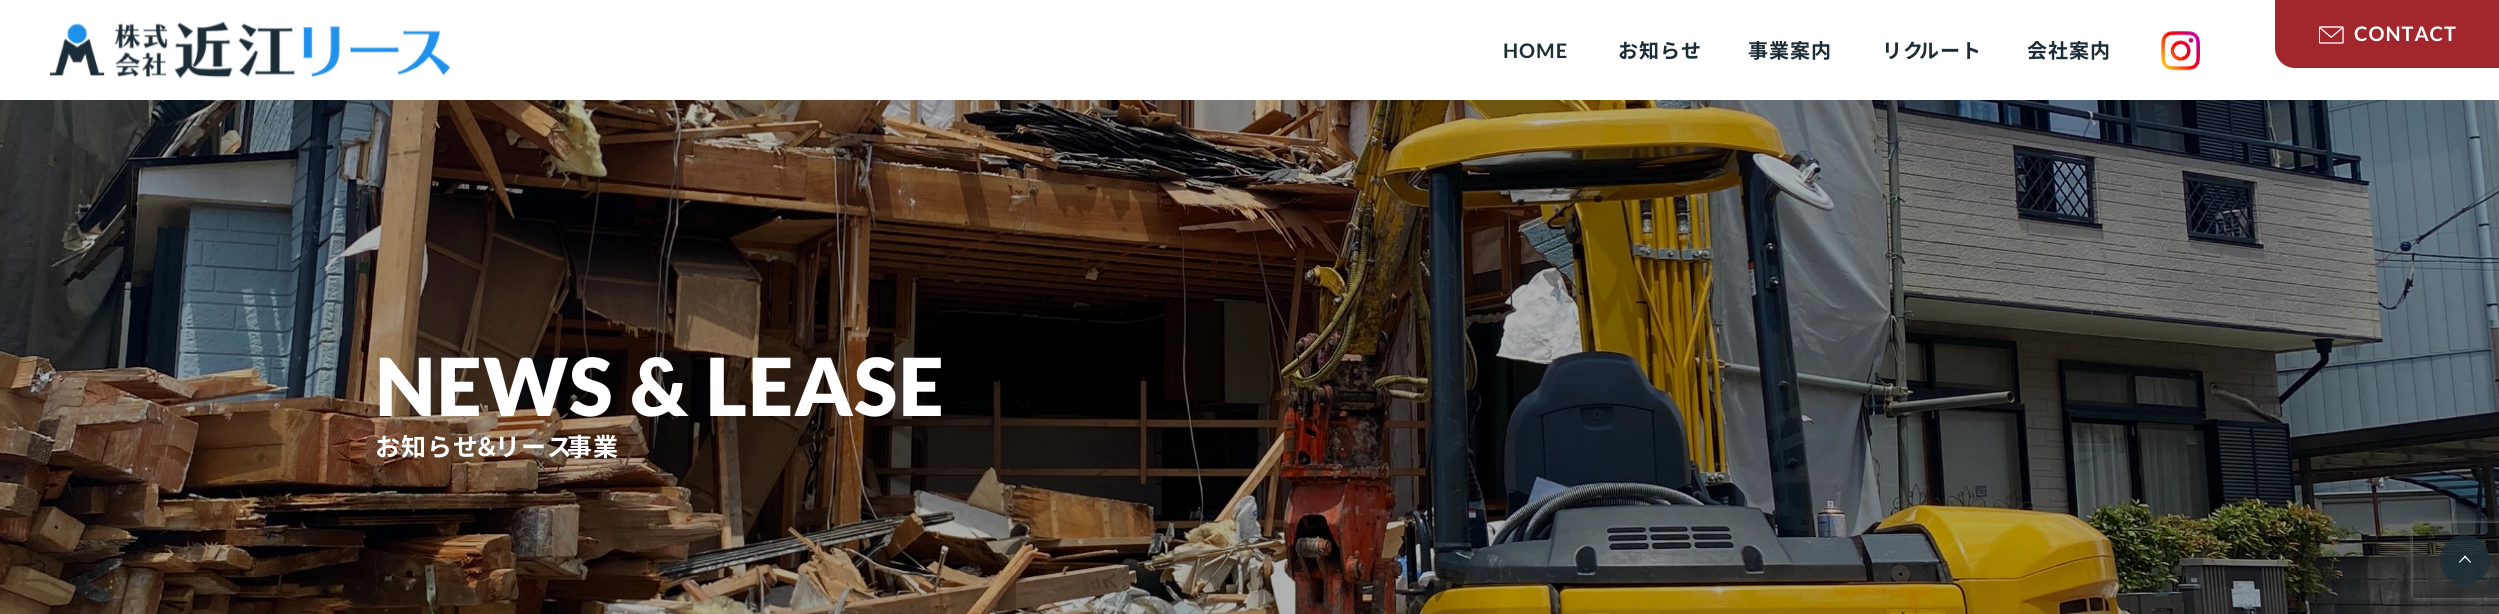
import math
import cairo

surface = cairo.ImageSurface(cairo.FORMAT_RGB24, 2499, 614)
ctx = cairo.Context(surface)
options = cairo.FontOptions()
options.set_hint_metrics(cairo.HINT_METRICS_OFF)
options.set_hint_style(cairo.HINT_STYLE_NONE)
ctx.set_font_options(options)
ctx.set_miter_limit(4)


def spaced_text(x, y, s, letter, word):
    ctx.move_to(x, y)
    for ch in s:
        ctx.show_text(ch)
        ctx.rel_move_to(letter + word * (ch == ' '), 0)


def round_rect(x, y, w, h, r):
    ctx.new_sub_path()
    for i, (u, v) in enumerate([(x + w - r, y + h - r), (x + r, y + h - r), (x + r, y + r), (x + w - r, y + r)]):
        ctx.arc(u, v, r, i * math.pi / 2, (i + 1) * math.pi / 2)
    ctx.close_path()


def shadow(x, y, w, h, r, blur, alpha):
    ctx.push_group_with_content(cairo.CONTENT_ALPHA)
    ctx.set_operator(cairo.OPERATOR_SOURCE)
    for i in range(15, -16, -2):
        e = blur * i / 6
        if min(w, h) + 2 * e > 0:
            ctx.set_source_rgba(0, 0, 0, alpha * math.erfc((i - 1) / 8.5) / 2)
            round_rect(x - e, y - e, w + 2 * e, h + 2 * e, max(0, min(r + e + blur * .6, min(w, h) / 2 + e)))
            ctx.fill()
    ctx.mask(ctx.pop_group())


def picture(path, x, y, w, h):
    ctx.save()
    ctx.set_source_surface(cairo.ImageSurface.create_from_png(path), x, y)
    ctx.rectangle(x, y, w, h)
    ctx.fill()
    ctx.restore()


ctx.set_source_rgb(1, 1, 1)
ctx.paint()
picture("img1.png", 50, 21, 400, 58)
ctx.select_font_face("Lato", cairo.FONT_SLANT_NORMAL, cairo.FONT_WEIGHT_BOLD)
ctx.set_font_size(20)
ctx.set_source_rgb(0.11, 0.176, 0.216)
spaced_text(1503, 58, "HOME", 1, 0)
ctx.select_font_face("Noto Sans JP", cairo.FONT_SLANT_NORMAL, cairo.FONT_WEIGHT_BOLD)
spaced_text(1618, 58, "お知らせ", 1, 0)
spaced_text(1748, 58, "事業案内", 1, 0)
spaced_text(1882, 58, "リク", 1, 0)
spaced_text(1919, 58, "ルート", 1, 0)
spaced_text(2027, 58, "会社案内", 1, 0)
picture("img2.png", 2161, 31, 39, 40)
ctx.set_source_rgb(0.635, 0.153, 0.176)
ctx.new_path()
ctx.move_to(2275, 0)
ctx.line_to(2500, 0)
ctx.line_to(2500, 68)
ctx.line_to(2295, 68)
ctx.curve_to(2284, 68, 2275, 59, 2275, 48)
ctx.close_path()
ctx.fill()
picture("img3.png", 2319, 26, 25, 18)
ctx.select_font_face("Lato", cairo.FONT_SLANT_NORMAL, cairo.FONT_WEIGHT_BOLD)
ctx.set_source_rgb(1, 1, 1)
spaced_text(2354, 41, "CONTACT", 1, 0)
picture("img4.png", 0, 100, 2499, 514)
ctx.select_font_face("Lato Black")
ctx.set_font_size(80)
spaced_text(375, 416, "NEWS & LEASE", 1, 0)
ctx.select_font_face("Noto Sans JP", cairo.FONT_SLANT_NORMAL, cairo.FONT_WEIGHT_BOLD)
ctx.set_font_size(25)
spaced_text(375, 456, "お知らせ", 1, 0)
spaced_text(474, 456, "＆", 1, 0)
spaced_text(495, 456, "リース", 1, 0)
spaced_text(567, 456, "事業", 1, 0)
ctx.save()
ctx.set_fill_rule(cairo.FILL_RULE_EVEN_ODD)
ctx.new_path()
ctx.move_to(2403, 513)
ctx.line_to(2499, 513)
ctx.line_to(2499, 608)
ctx.line_to(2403, 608)
ctx.close_path()
ctx.move_to(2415.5, 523)
ctx.line_to(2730.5, 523)
ctx.curve_to(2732, 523, 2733, 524, 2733, 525.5)
ctx.line_to(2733, 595.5)
ctx.curve_to(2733, 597, 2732, 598, 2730.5, 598)
ctx.line_to(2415.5, 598)
ctx.curve_to(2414, 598, 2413, 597, 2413, 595.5)
ctx.line_to(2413, 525.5)
ctx.curve_to(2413, 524, 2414, 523, 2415.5, 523)
ctx.close_path()
ctx.clip()
ctx.set_source_rgb(0.502, 0.502, 0.502)
shadow(2413, 523, 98, 75, 2.5, 3, 1)
ctx.restore()
ctx.set_source_rgba(0.11, 0.176, 0.216, 0.8)
ctx.arc(2465, 560, 25, 0, 2 * math.pi)
ctx.fill()
ctx.set_source_rgb(1, 1, 1)
ctx.new_path()
ctx.move_to(2459, 562)
ctx.line_to(2465, 555.5)
ctx.line_to(2466, 556.5)
ctx.line_to(2459.5, 563)
ctx.close_path()
ctx.fill()
ctx.new_path()
ctx.move_to(2464, 556.5)
ctx.line_to(2465, 555.5)
ctx.line_to(2471, 562)
ctx.line_to(2470.5, 563)
ctx.close_path()
ctx.fill()
surface.write_to_png("page.png")
